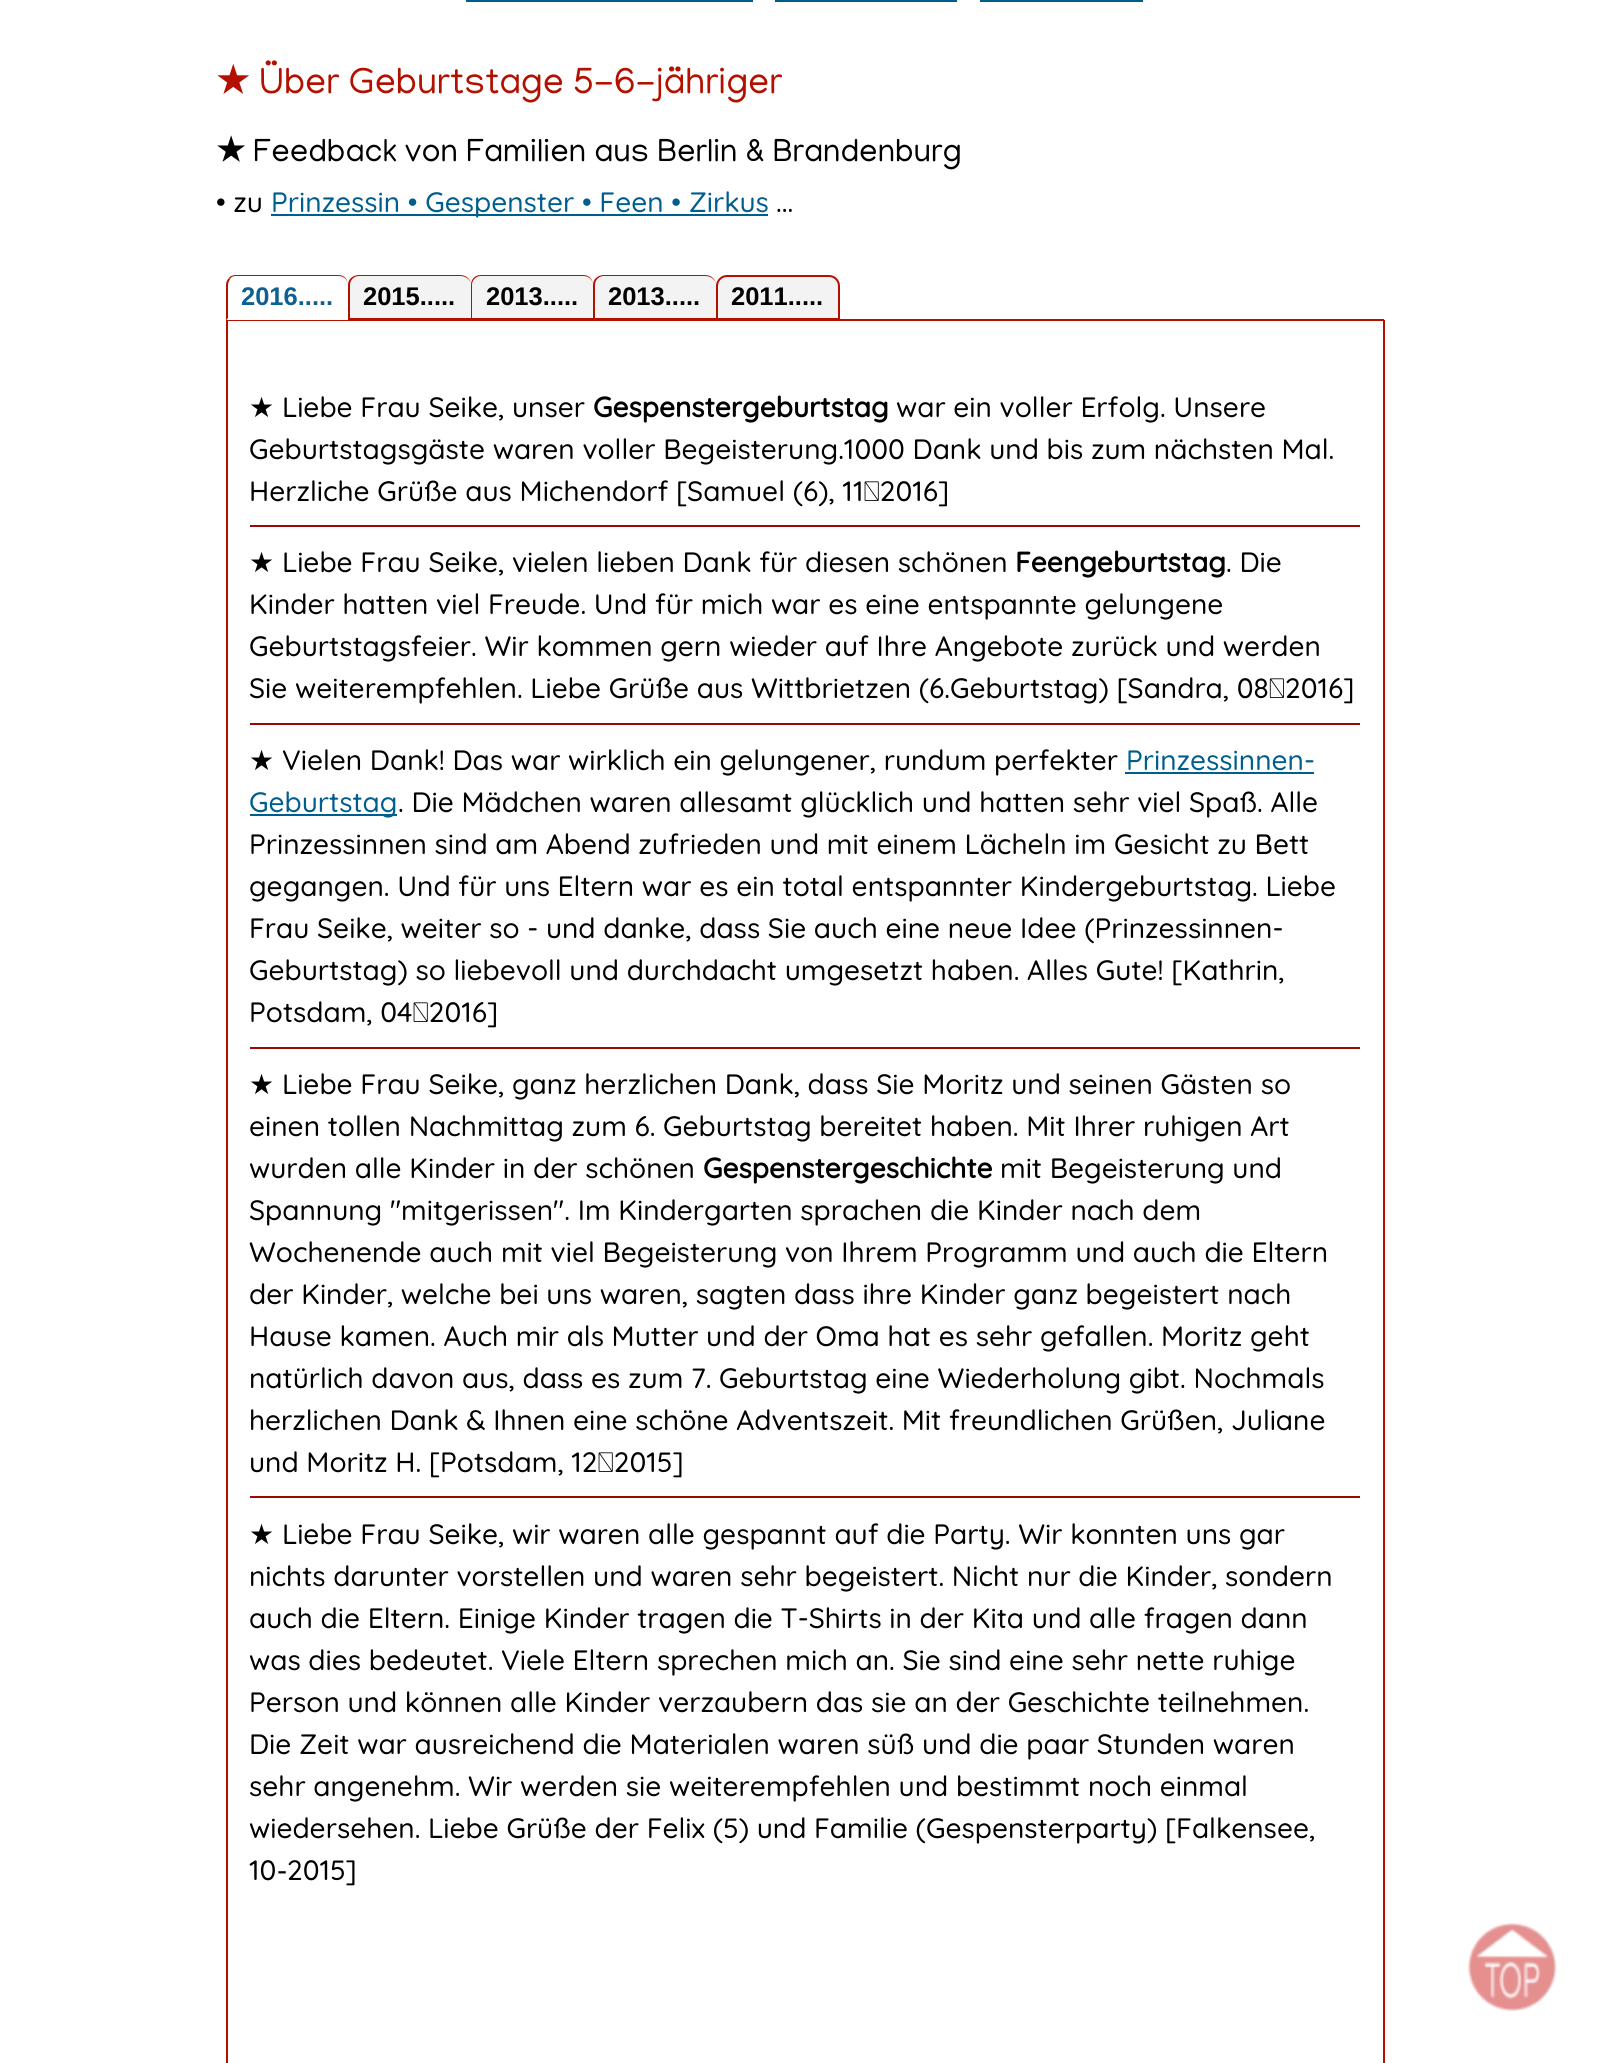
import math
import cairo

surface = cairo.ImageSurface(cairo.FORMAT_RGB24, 1607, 2063)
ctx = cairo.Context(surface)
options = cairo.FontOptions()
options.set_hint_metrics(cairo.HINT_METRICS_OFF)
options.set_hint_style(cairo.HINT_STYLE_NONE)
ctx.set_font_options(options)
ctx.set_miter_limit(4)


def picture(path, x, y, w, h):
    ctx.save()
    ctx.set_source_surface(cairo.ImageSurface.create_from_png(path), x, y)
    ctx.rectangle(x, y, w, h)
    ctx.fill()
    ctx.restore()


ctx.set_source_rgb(1, 1, 1)
ctx.paint()
ctx.set_source_rgb(0, 0.369, 0.561)
ctx.rectangle(466, 0, 287, 2)
ctx.fill()
ctx.rectangle(775, 0, 182, 2)
ctx.fill()
ctx.rectangle(980, 0, 163, 2)
ctx.fill()
ctx.select_font_face("DejaVu Sans", cairo.FONT_SLANT_NORMAL, cairo.FONT_WEIGHT_BOLD)
ctx.set_font_size(37.3)
ctx.set_source_rgb(0.706, 0.063, 0)
ctx.move_to(216, 93)
ctx.show_text("★")
ctx.select_font_face("Manjari")
ctx.move_to(259, 93)
ctx.show_text("Über Geburtstage 5-6-jähriger")
ctx.select_font_face("DejaVu Sans", cairo.FONT_SLANT_NORMAL, cairo.FONT_WEIGHT_BOLD)
ctx.set_font_size(32.7)
ctx.set_source_rgb(0, 0, 0)
ctx.move_to(216, 161)
ctx.show_text("★")
ctx.select_font_face("Manjari")
ctx.move_to(253, 161)
ctx.show_text("Feedback von Familien aus Berlin & Brandenburg")
ctx.select_font_face("Quicksand Medium")
ctx.set_font_size(28)
ctx.move_to(216, 212)
ctx.show_text("• zu")
ctx.set_source_rgb(0, 0.369, 0.561)
ctx.rectangle(271, 214, 497, 2)
ctx.fill()
ctx.move_to(271, 212)
ctx.show_text("Prinzessin • Gespenster • Feen • Zirkus")
ctx.set_source_rgb(0, 0, 0)
ctx.move_to(776, 212)
ctx.show_text("...")
ctx.set_source_rgb(0.706, 0.063, 0)
ctx.new_path()
ctx.move_to(236, 275)
ctx.line_to(338, 275)
ctx.curve_to(344, 275, 348, 279, 348, 285)
ctx.curve_to(348, 280, 344, 276, 338, 276)
ctx.line_to(236, 276)
ctx.curve_to(233, 276, 231, 277, 230, 279)
ctx.line_to(229, 278)
ctx.curve_to(230, 276, 233, 275, 236, 275)
ctx.close_path()
ctx.fill()
ctx.rectangle(1383, 320, 2, 1743)
ctx.fill()
ctx.rectangle(226, 320, 2, 1743)
ctx.fill()
ctx.rectangle(226, 319, 1158, 2)
ctx.fill()
ctx.set_source_rgb(1, 1, 1)
ctx.new_path()
ctx.move_to(228, 318)
ctx.line_to(226, 320)
ctx.line_to(348, 320)
ctx.line_to(348, 318)
ctx.close_path()
ctx.fill()
ctx.set_source_rgb(0.706, 0.063, 0)
ctx.new_path()
ctx.move_to(230, 279)
ctx.curve_to(229, 281, 228, 283, 228, 285)
ctx.line_to(228, 318)
ctx.line_to(226, 320)
ctx.line_to(226, 285)
ctx.curve_to(226, 282, 227, 280, 229, 278)
ctx.close_path()
ctx.fill()
ctx.select_font_face("Liberation Sans", cairo.FONT_SLANT_NORMAL, cairo.FONT_WEIGHT_BOLD)
ctx.set_font_size(25.5)
ctx.set_source_rgb(0.051, 0.376, 0.58)
ctx.move_to(241, 305)
ctx.show_text("2016.....")
ctx.set_source_rgb(0.953, 0.953, 0.953)
ctx.new_path()
ctx.move_to(359, 276)
ctx.line_to(460, 276)
ctx.curve_to(466, 276, 471, 280, 471, 285)
ctx.line_to(471, 318)
ctx.line_to(350, 318)
ctx.line_to(350, 285)
ctx.curve_to(350, 280, 354, 276, 359, 276)
ctx.close_path()
ctx.fill()
ctx.set_source_rgb(0.706, 0.063, 0)
ctx.set_fill_rule(cairo.FILL_RULE_EVEN_ODD)
ctx.new_path()
ctx.move_to(359, 275)
ctx.line_to(460, 275)
ctx.curve_to(466, 275, 471, 279, 471, 285)
ctx.line_to(471, 320)
ctx.line_to(348, 320)
ctx.line_to(348, 285)
ctx.curve_to(348, 279, 353, 275, 359, 275)
ctx.close_path()
ctx.move_to(359, 276)
ctx.line_to(460, 276)
ctx.curve_to(466, 276, 471, 280, 471, 285)
ctx.line_to(471, 318)
ctx.line_to(350, 318)
ctx.line_to(350, 285)
ctx.curve_to(350, 280, 354, 276, 359, 276)
ctx.close_path()
ctx.fill()
ctx.set_source_rgb(0, 0, 0)
ctx.move_to(363, 305)
ctx.show_text("2015.....")
ctx.set_source_rgb(0.953, 0.953, 0.953)
ctx.set_fill_rule(cairo.FILL_RULE_WINDING)
ctx.new_path()
ctx.move_to(481, 276)
ctx.line_to(583, 276)
ctx.curve_to(589, 276, 593, 280, 593, 285)
ctx.line_to(593, 318)
ctx.line_to(472, 318)
ctx.line_to(472, 285)
ctx.curve_to(472, 280, 476, 276, 481, 276)
ctx.close_path()
ctx.fill()
ctx.set_source_rgb(0.706, 0.063, 0)
ctx.set_fill_rule(cairo.FILL_RULE_EVEN_ODD)
ctx.new_path()
ctx.move_to(481, 275)
ctx.line_to(583, 275)
ctx.curve_to(589, 275, 593, 279, 593, 285)
ctx.line_to(593, 320)
ctx.line_to(471, 320)
ctx.line_to(471, 285)
ctx.curve_to(471, 279, 475, 275, 481, 275)
ctx.close_path()
ctx.move_to(481, 276)
ctx.line_to(583, 276)
ctx.curve_to(589, 276, 593, 280, 593, 285)
ctx.line_to(593, 318)
ctx.line_to(472, 318)
ctx.line_to(472, 285)
ctx.curve_to(472, 280, 476, 276, 481, 276)
ctx.close_path()
ctx.fill()
ctx.set_source_rgb(0, 0, 0)
ctx.move_to(486, 305)
ctx.show_text("2013.....")
ctx.set_source_rgb(0.953, 0.953, 0.953)
ctx.set_fill_rule(cairo.FILL_RULE_WINDING)
ctx.new_path()
ctx.move_to(604, 276)
ctx.line_to(705, 276)
ctx.curve_to(711, 276, 716, 280, 716, 285)
ctx.line_to(716, 318)
ctx.line_to(595, 318)
ctx.line_to(595, 285)
ctx.curve_to(595, 280, 599, 276, 604, 276)
ctx.close_path()
ctx.fill()
ctx.set_source_rgb(0.706, 0.063, 0)
ctx.set_fill_rule(cairo.FILL_RULE_EVEN_ODD)
ctx.new_path()
ctx.move_to(604, 275)
ctx.line_to(705, 275)
ctx.curve_to(711, 275, 716, 279, 716, 285)
ctx.line_to(716, 320)
ctx.line_to(593, 320)
ctx.line_to(593, 285)
ctx.curve_to(593, 279, 598, 275, 604, 275)
ctx.close_path()
ctx.move_to(604, 276)
ctx.line_to(705, 276)
ctx.curve_to(711, 276, 716, 280, 716, 285)
ctx.line_to(716, 318)
ctx.line_to(595, 318)
ctx.line_to(595, 285)
ctx.curve_to(595, 280, 599, 276, 604, 276)
ctx.close_path()
ctx.fill()
ctx.set_source_rgb(0, 0, 0)
ctx.move_to(608, 305)
ctx.show_text("2013.....")
ctx.set_source_rgb(0.953, 0.953, 0.953)
ctx.new_path()
ctx.move_to(727, 276)
ctx.line_to(829, 276)
ctx.curve_to(834.5, 276, 839, 280.5, 839, 286)
ctx.line_to(839, 319)
ctx.line_to(717, 319)
ctx.line_to(717, 286)
ctx.curve_to(717, 280.5, 721.5, 276, 727, 276)
ctx.close_path()
ctx.fill_preserve()
ctx.set_source_rgb(0.706, 0.063, 0)
ctx.stroke()
ctx.set_source_rgb(0, 0, 0)
ctx.move_to(731, 305)
ctx.show_text("2011.....")
ctx.select_font_face("DejaVu Sans")
ctx.set_font_size(28)
ctx.move_to(249, 417)
ctx.show_text("★")
ctx.select_font_face("Quicksand Medium")
ctx.move_to(282, 417)
ctx.show_text("Liebe Frau Seike, unser")
ctx.select_font_face("Quicksand", cairo.FONT_SLANT_NORMAL, cairo.FONT_WEIGHT_BOLD)
ctx.move_to(593, 417)
ctx.show_text("Gespenstergeburtstag")
ctx.select_font_face("Quicksand Medium")
ctx.move_to(896, 417)
ctx.show_text("war ein voller Erfolg. Unsere")
ctx.move_to(249, 459)
ctx.show_text("Geburtstagsgäste waren voller Begeisterung.1000 Dank und bis zum nächsten Mal.")
ctx.move_to(249, 501)
ctx.show_text("Herzliche Grüße aus Michendorf [Samuel (6), 11‑2016]")
ctx.set_source_rgb(0.608, 0.024, 0.024)
ctx.rectangle(250, 525, 1110, 2)
ctx.fill()
ctx.select_font_face("DejaVu Sans")
ctx.set_source_rgb(0, 0, 0)
ctx.move_to(249, 572)
ctx.show_text("★")
ctx.select_font_face("Quicksand Medium")
ctx.move_to(282, 572)
ctx.show_text("Liebe Frau Seike, vielen lieben Dank für diesen schönen")
ctx.select_font_face("Quicksand", cairo.FONT_SLANT_NORMAL, cairo.FONT_WEIGHT_BOLD)
ctx.move_to(1015, 572)
ctx.show_text("Feengeburtstag")
ctx.select_font_face("Quicksand Medium")
ctx.move_to(1226, 572)
ctx.show_text(". Die")
ctx.move_to(249, 614)
ctx.show_text("Kinder hatten viel Freude. Und für mich war es eine entspannte gelungene")
ctx.move_to(249, 656)
ctx.show_text("Geburtstagsfeier. Wir kommen gern wieder auf Ihre Angebote zurück und werden")
ctx.move_to(249, 698)
ctx.show_text("Sie weiterempfehlen. Liebe Grüße aus Wittbrietzen (6.Geburtstag) [Sandra, 08‑2016]")
ctx.set_source_rgb(0.608, 0.024, 0.024)
ctx.rectangle(250, 723, 1110, 2)
ctx.fill()
ctx.select_font_face("DejaVu Sans")
ctx.set_source_rgb(0, 0, 0)
ctx.move_to(249, 770)
ctx.show_text("★")
ctx.select_font_face("Quicksand Medium")
ctx.move_to(282, 770)
ctx.show_text("Vielen Dank! Das war wirklich ein gelungener, rundum perfekter")
ctx.set_source_rgb(0, 0.369, 0.561)
ctx.move_to(1126, 770)
ctx.show_text("Prinzessinnen-")
ctx.rectangle(1125, 772, 189, 2)
ctx.fill()
ctx.rectangle(250, 814, 147, 2)
ctx.fill()
ctx.move_to(249, 812)
ctx.show_text("Geburtstag")
ctx.set_source_rgb(0, 0, 0)
ctx.move_to(398, 812)
ctx.show_text(". Die Mädchen waren allesamt glücklich und hatten sehr viel Spaß. Alle")
ctx.move_to(249, 854)
ctx.show_text("Prinzessinnen sind am Abend zufrieden und mit einem Lächeln im Gesicht zu Bett")
ctx.move_to(249, 896)
ctx.show_text("gegangen. Und für uns Eltern war es ein total entspannter Kindergeburtstag. Liebe")
ctx.move_to(249, 938)
ctx.show_text("Frau Seike, weiter so - und danke, dass Sie auch eine neue Idee (Prinzessinnen-")
ctx.move_to(249, 980)
ctx.show_text("Geburtstag) so liebevoll und durchdacht umgesetzt haben. Alles Gute! [Kathrin,")
ctx.move_to(249, 1022)
ctx.show_text("Potsdam, 04‑2016]")
ctx.set_source_rgb(0.608, 0.024, 0.024)
ctx.rectangle(250, 1047, 1110, 2)
ctx.fill()
ctx.select_font_face("DejaVu Sans")
ctx.set_source_rgb(0, 0, 0)
ctx.move_to(249, 1094)
ctx.show_text("★")
ctx.select_font_face("Quicksand Medium")
ctx.move_to(282, 1094)
ctx.show_text("Liebe Frau Seike, ganz herzlichen Dank, dass Sie Moritz und seinen Gästen so")
ctx.move_to(249, 1136)
ctx.show_text("einen tollen Nachmittag zum 6. Geburtstag bereitet haben. Mit Ihrer ruhigen Art")
ctx.move_to(249, 1178)
ctx.show_text("wurden alle Kinder in der schönen")
ctx.select_font_face("Quicksand", cairo.FONT_SLANT_NORMAL, cairo.FONT_WEIGHT_BOLD)
ctx.move_to(703, 1178)
ctx.show_text("Gespenstergeschichte")
ctx.select_font_face("Quicksand Medium")
ctx.move_to(1000, 1178)
ctx.show_text("mit Begeisterung und")
ctx.move_to(249, 1220)
ctx.show_text("Spannung \"mitgerissen\". Im Kindergarten sprachen die Kinder nach dem")
ctx.move_to(249, 1262)
ctx.show_text("Wochenende auch mit viel Begeisterung von Ihrem Programm und auch die Eltern")
ctx.move_to(249, 1304)
ctx.show_text("der Kinder, welche bei uns waren, sagten dass ihre Kinder ganz begeistert nach")
ctx.move_to(249, 1346)
ctx.show_text("Hause kamen. Auch mir als Mutter und der Oma hat es sehr gefallen. Moritz geht")
ctx.move_to(249, 1388)
ctx.show_text("natürlich davon aus, dass es zum 7. Geburtstag eine Wiederholung gibt. Nochmals")
ctx.move_to(249, 1430)
ctx.show_text("herzlichen Dank & Ihnen eine schöne Adventszeit. Mit freundlichen Grüßen, Juliane")
ctx.move_to(249, 1472)
ctx.show_text("und Moritz H. [Potsdam, 12‑2015]")
ctx.set_source_rgb(0.608, 0.024, 0.024)
ctx.rectangle(250, 1496, 1110, 2)
ctx.fill()
ctx.select_font_face("DejaVu Sans")
ctx.set_source_rgb(0, 0, 0)
ctx.move_to(249, 1544)
ctx.show_text("★")
ctx.select_font_face("Quicksand Medium")
ctx.move_to(282, 1544)
ctx.show_text("Liebe Frau Seike, wir waren alle gespannt auf die Party. Wir konnten uns gar")
ctx.move_to(249, 1586)
ctx.show_text("nichts darunter vorstellen und waren sehr begeistert. Nicht nur die Kinder, sondern")
ctx.move_to(249, 1628)
ctx.show_text("auch die Eltern. Einige Kinder tragen die T-Shirts in der Kita und alle fragen dann")
ctx.move_to(249, 1670)
ctx.show_text("was dies bedeutet. Viele Eltern sprechen mich an. Sie sind eine sehr nette ruhige")
ctx.move_to(249, 1712)
ctx.show_text("Person und können alle Kinder verzaubern das sie an der Geschichte teilnehmen.")
ctx.move_to(249, 1754)
ctx.show_text("Die Zeit war ausreichend die Materialen waren süß und die paar Stunden waren")
ctx.move_to(249, 1796)
ctx.show_text("sehr angenehm. Wir werden sie weiterempfehlen und bestimmt noch einmal")
ctx.move_to(249, 1838)
ctx.show_text("wiedersehen. Liebe Grüße der Felix (5) und Familie (Gespensterparty) [Falkensee,")
ctx.move_to(249, 1880)
ctx.show_text("10")
ctx.select_font_face("DejaVu Sans")
ctx.move_to(277, 1880)
ctx.show_text("‑")
ctx.select_font_face("Quicksand Medium")
ctx.move_to(287, 1880)
ctx.show_text("2015]")
picture("img1.png", 1468, 1923, 89, 89)
surface.write_to_png("page.png")
